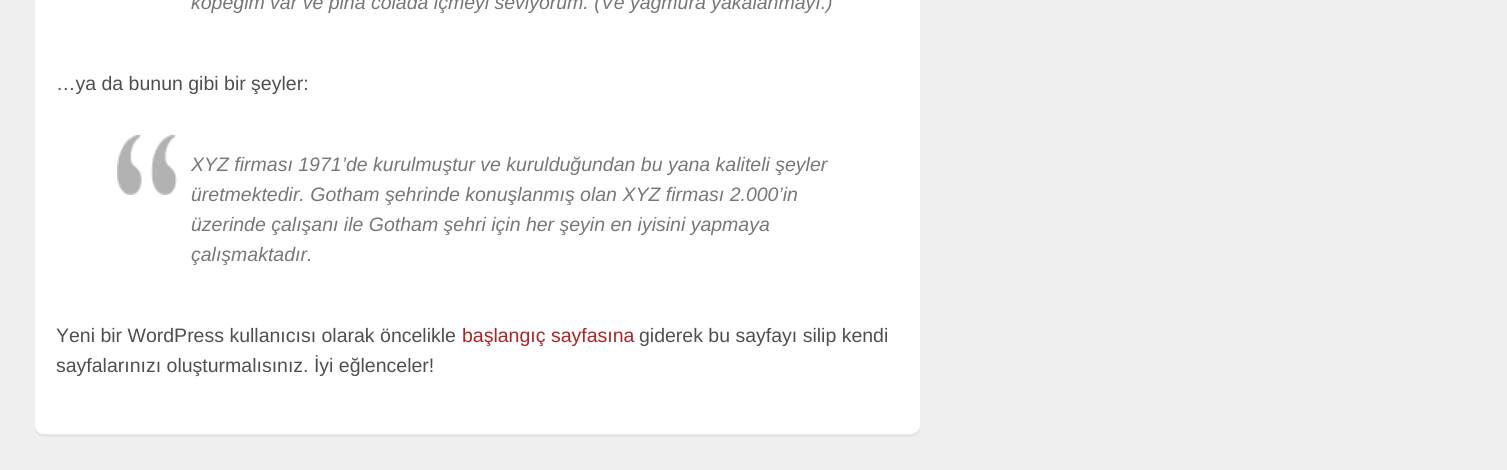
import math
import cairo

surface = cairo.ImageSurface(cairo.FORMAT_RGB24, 1507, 470)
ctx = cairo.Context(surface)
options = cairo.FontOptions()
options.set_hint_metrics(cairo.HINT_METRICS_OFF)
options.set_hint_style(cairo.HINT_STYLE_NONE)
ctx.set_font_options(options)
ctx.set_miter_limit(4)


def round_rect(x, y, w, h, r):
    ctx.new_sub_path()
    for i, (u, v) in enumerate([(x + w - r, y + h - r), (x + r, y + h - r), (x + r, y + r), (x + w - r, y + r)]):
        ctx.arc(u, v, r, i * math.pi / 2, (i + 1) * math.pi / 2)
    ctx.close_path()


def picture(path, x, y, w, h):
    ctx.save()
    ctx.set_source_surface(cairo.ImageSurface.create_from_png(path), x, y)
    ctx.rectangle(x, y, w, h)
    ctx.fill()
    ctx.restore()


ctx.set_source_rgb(0.937, 0.937, 0.937)
ctx.paint()
ctx.set_source_rgb(0.89, 0.894, 0.906)
ctx.new_path()
ctx.move_to(35, 427)
ctx.line_to(35, 428)
ctx.curve_to(35, 433, 39, 437, 44, 437)
ctx.line_to(911, 437)
ctx.curve_to(916, 437, 920, 433, 920, 428)
ctx.line_to(920, -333)
ctx.line_to(920, -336)
ctx.line_to(920, 424)
ctx.curve_to(920, 429, 915, 434, 910, 434)
ctx.line_to(44, 434)
ctx.curve_to(40, 434, 36, 431, 35, 427)
ctx.close_path()
ctx.fill()
ctx.set_source_rgb(1, 1, 1)
round_rect(35, -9, 885, 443, 9)
ctx.fill()
ctx.select_font_face("Liberation Sans", cairo.FONT_SLANT_ITALIC)
ctx.set_font_size(19.5)
ctx.set_source_rgb(0.467, 0.467, 0.467)
ctx.move_to(191, 9)
ctx.show_text("köpeğim var ve piña colada içmeyi seviyorum. (Ve yağmura yakalanmayı.)")
ctx.select_font_face("Liberation Sans")
ctx.set_source_rgb(0.31, 0.31, 0.31)
ctx.move_to(56, 90)
ctx.show_text("…ya da bunun gibi bir şeyler:")
picture("img1.png", 117, 135, 60, 60)
ctx.select_font_face("Liberation Sans", cairo.FONT_SLANT_ITALIC)
ctx.set_source_rgb(0.467, 0.467, 0.467)
ctx.move_to(191, 171)
ctx.show_text("XYZ firması 1971’de kurulmuştur ve kurulduğundan bu yana kaliteli şeyler")
ctx.move_to(191, 201)
ctx.show_text("üretmektedir. Gotham şehrinde konuşlanmış olan XYZ firması 2.000’in")
ctx.move_to(191, 231)
ctx.show_text("üzerinde çalışanı ile Gotham şehri için her şeyin en iyisini yapmaya")
ctx.move_to(191, 261)
ctx.show_text("çalışmaktadır.")
ctx.select_font_face("Liberation Sans")
ctx.set_source_rgb(0.31, 0.31, 0.31)
ctx.move_to(56, 342)
ctx.show_text("Yeni bir WordPress kullanıcısı olarak öncelikle")
ctx.set_source_rgb(0.698, 0.133, 0.133)
ctx.move_to(462, 342)
ctx.show_text("başlangıç sayfasına")
ctx.set_source_rgb(0.31, 0.31, 0.31)
ctx.move_to(639, 342)
ctx.show_text("giderek bu sayfayı silip kendi")
ctx.move_to(56, 372)
ctx.show_text("sayfalarınızı oluşturmalısınız. İyi eğlenceler!")
surface.write_to_png("page.png")
